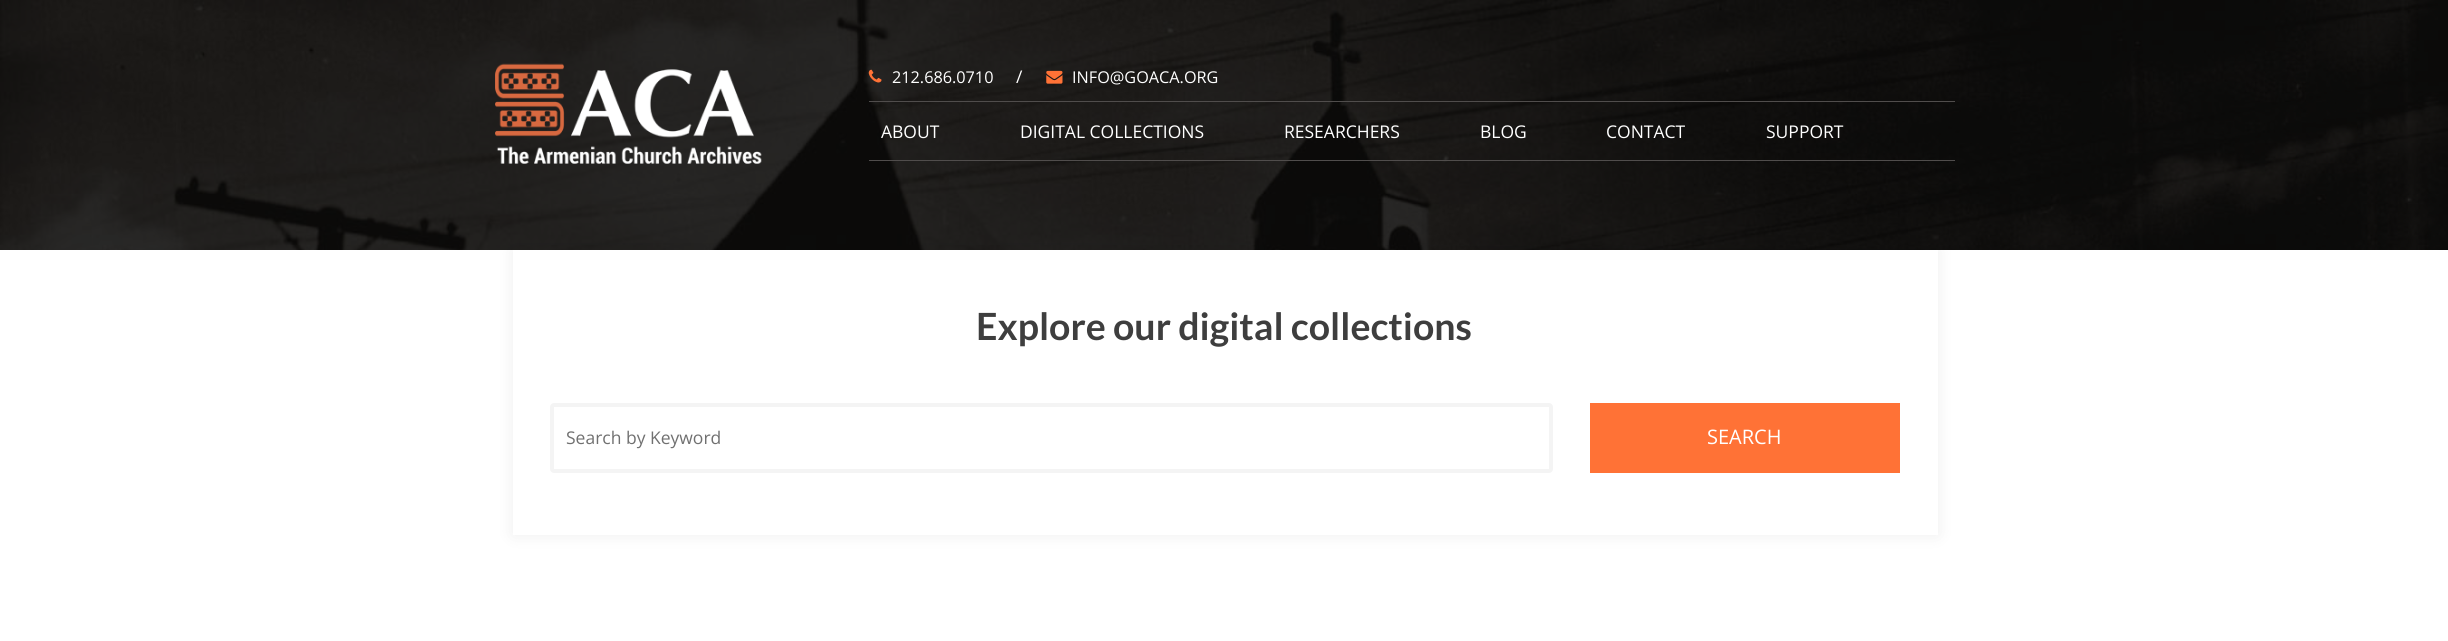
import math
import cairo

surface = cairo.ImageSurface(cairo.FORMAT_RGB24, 2448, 641)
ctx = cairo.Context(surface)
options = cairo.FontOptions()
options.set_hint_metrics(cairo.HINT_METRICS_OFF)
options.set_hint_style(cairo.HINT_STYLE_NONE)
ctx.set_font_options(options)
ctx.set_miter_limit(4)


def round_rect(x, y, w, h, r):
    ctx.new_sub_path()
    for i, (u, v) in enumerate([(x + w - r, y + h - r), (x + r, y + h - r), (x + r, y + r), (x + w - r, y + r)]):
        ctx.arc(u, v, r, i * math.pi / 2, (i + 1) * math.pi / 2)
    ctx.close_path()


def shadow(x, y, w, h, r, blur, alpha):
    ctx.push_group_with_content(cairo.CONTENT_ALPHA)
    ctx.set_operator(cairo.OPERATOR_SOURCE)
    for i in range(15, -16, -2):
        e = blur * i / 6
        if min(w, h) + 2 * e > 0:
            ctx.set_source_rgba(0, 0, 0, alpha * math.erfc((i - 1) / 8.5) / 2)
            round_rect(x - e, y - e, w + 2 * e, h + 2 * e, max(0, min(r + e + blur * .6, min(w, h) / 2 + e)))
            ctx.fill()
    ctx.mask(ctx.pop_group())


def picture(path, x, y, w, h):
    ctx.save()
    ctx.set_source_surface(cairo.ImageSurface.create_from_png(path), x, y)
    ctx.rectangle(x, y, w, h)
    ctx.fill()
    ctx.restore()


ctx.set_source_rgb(1, 1, 1)
ctx.paint()
picture("img1.png", 0, 0, 2448, 250)
picture("img2.png", 495, 63, 267, 101)
picture("img3.png", 868, 69, 14, 14)
ctx.select_font_face("Open Sans")
ctx.set_font_size(16.25)
ctx.set_source_rgb(1, 1, 1)
ctx.move_to(892, 83)
ctx.show_text("212.686.0710")
ctx.set_font_size(17.5)
ctx.move_to(1016, 83)
ctx.show_text("/")
picture("img4.png", 1046, 70, 17, 14)
ctx.set_font_size(16.25)
ctx.move_to(1072, 83)
ctx.show_text("INFO@GOACA.ORG")
ctx.set_source_rgb(0.314, 0.302, 0.298)
ctx.rectangle(869, 101, 1086, 1)
ctx.fill()
ctx.rectangle(869, 160, 1086, 1)
ctx.fill()
ctx.set_font_size(17.5)
ctx.set_source_rgb(1, 1, 1)
ctx.move_to(881, 138)
ctx.show_text("ABOUT")
ctx.move_to(1020, 138)
ctx.show_text("DIGITAL COLLECTIONS")
ctx.move_to(1284, 138)
ctx.show_text("RESEARCHERS")
ctx.move_to(1480, 138)
ctx.show_text("BLOG")
ctx.move_to(1606, 138)
ctx.show_text("CONTACT")
ctx.move_to(1766, 138)
ctx.show_text("SUPPORT")
ctx.set_source_rgb(0, 0, 0)
shadow(513, 250, 1425, 285, 0, 9, 0.07)
ctx.set_source_rgb(1, 1, 1)
ctx.rectangle(513, 250, 1425, 285)
ctx.fill()
ctx.select_font_face("Lato", cairo.FONT_SLANT_NORMAL, cairo.FONT_WEIGHT_BOLD)
ctx.set_font_size(37.5)
ctx.set_source_rgb(0.243, 0.243, 0.243)
ctx.move_to(976, 340)
ctx.show_text("Explore our digital collections")
round_rect(552, 405, 999, 66, 2)
ctx.set_source_rgb(0.957, 0.957, 0.957)
ctx.set_line_width(4)
ctx.stroke()
ctx.select_font_face("Open Sans")
ctx.set_font_size(17.5)
ctx.set_source_rgb(0.439, 0.439, 0.439)
ctx.move_to(566, 444)
ctx.show_text("Search by Keyword")
ctx.set_source_rgb(1, 0.447, 0.212)
ctx.rectangle(1590, 403, 310, 70)
ctx.fill()
ctx.set_font_size(20)
ctx.set_source_rgb(1, 1, 1)
ctx.move_to(1707, 444)
ctx.show_text("SEARCH")
surface.write_to_png("page.png")
